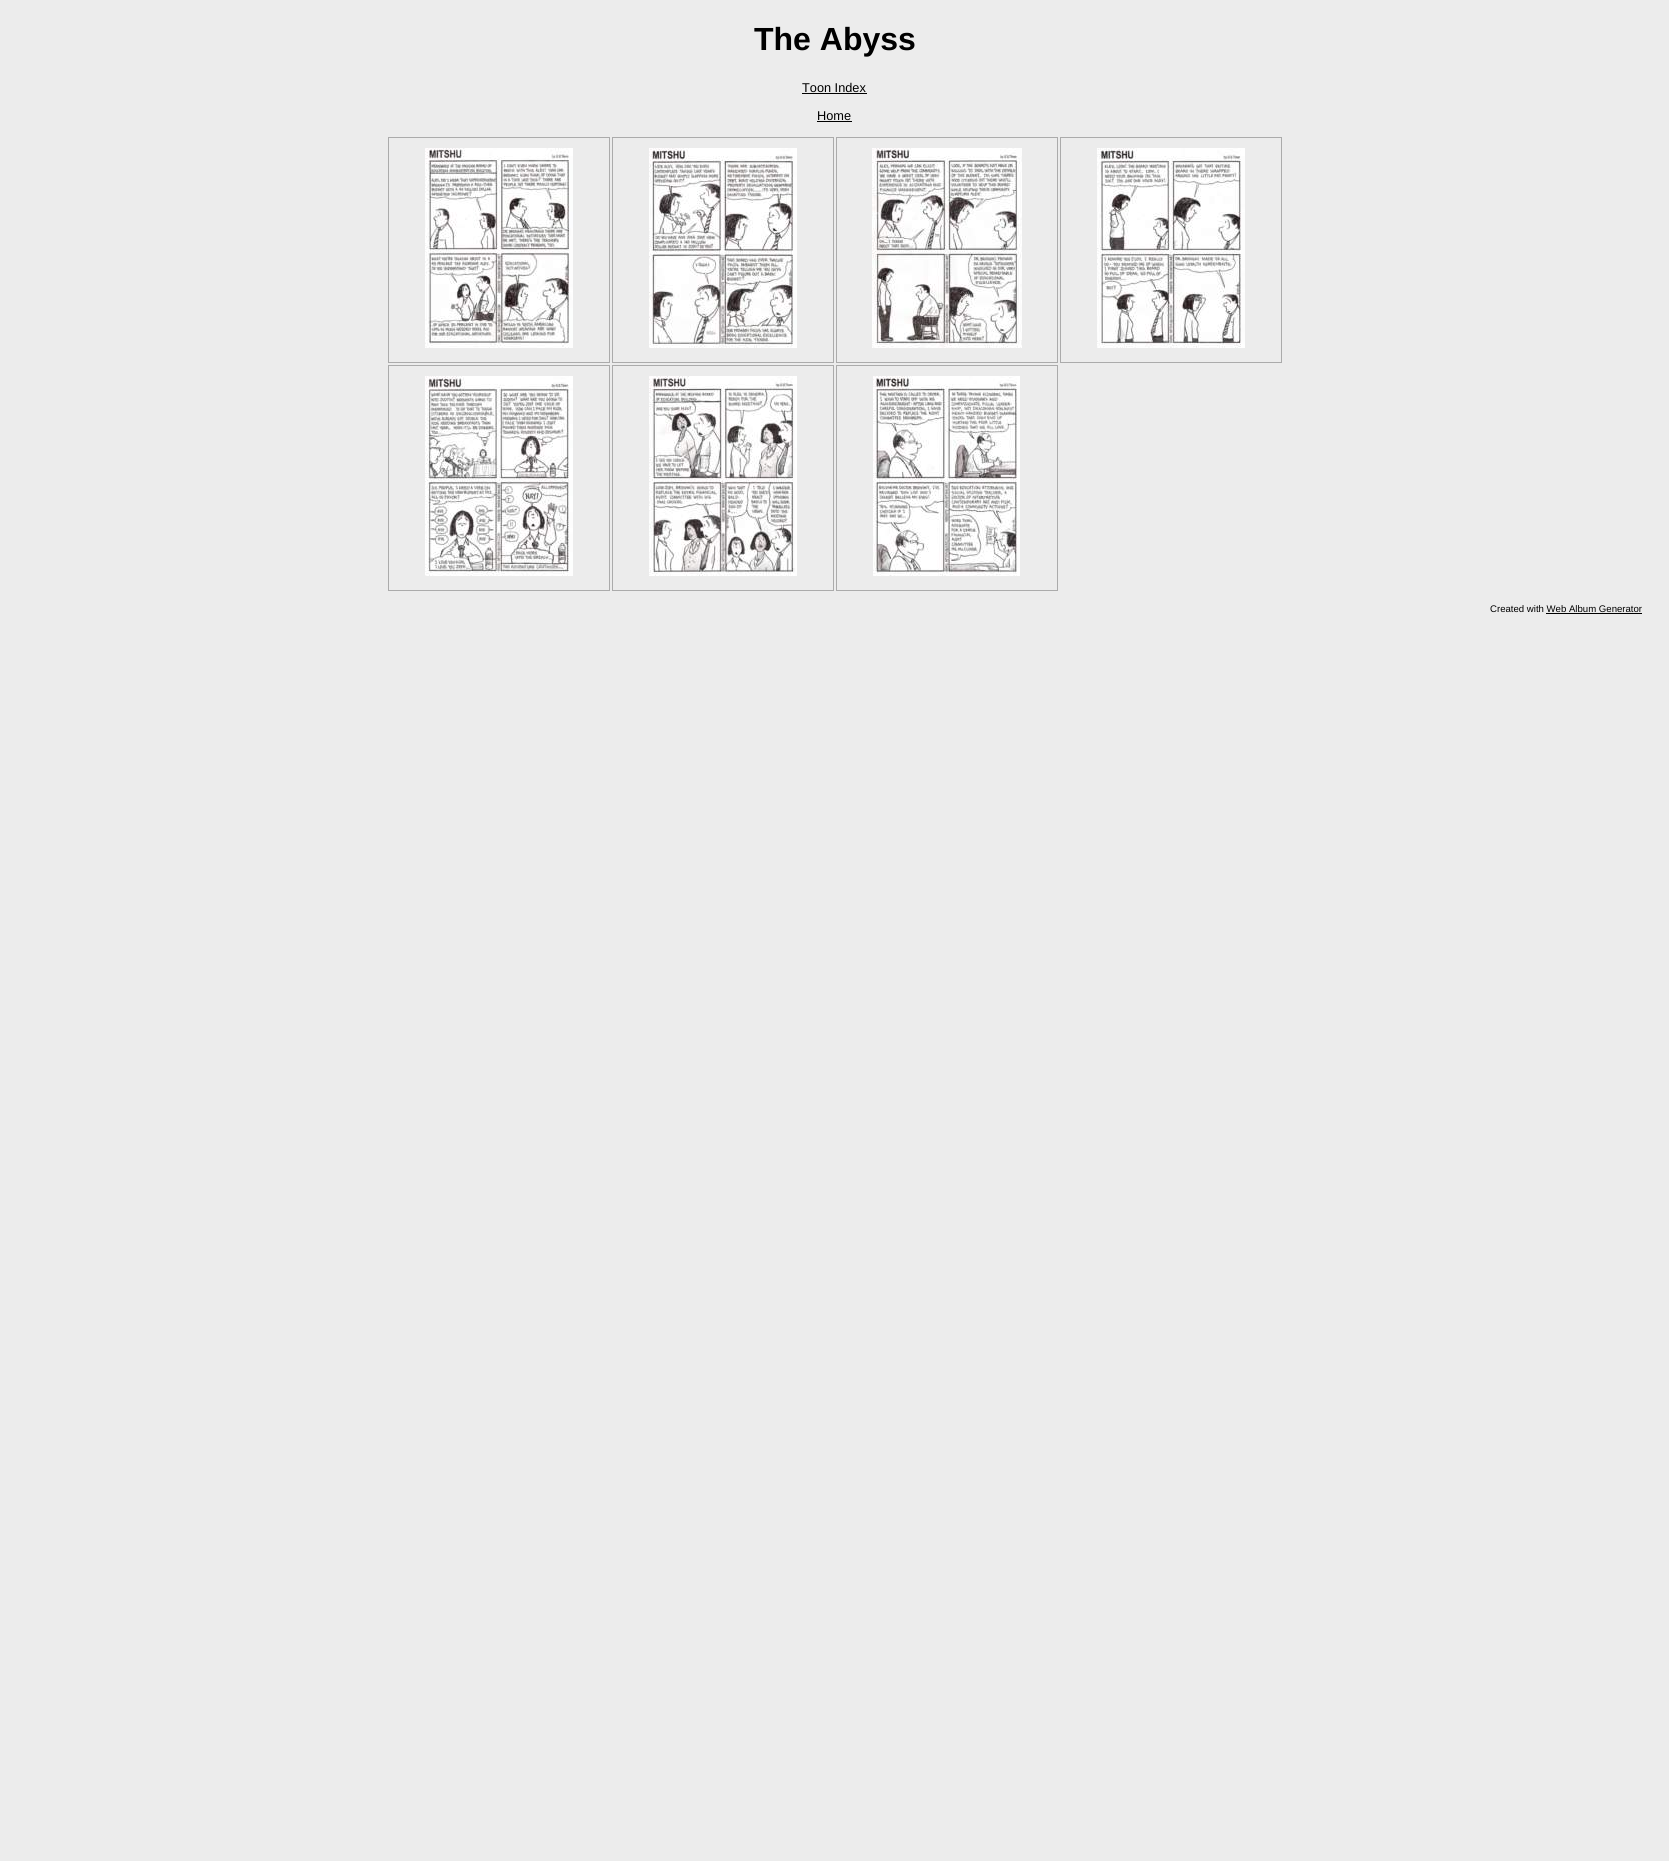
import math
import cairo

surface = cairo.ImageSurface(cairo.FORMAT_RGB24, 1669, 1861)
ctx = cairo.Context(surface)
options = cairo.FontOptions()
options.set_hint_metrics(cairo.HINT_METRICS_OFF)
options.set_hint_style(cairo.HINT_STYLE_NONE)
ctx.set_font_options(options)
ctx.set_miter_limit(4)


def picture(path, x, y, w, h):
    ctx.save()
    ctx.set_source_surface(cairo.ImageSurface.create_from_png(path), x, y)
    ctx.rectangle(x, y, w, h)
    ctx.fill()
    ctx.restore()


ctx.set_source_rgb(0.922, 0.922, 0.922)
ctx.paint()
ctx.select_font_face("Liberation Sans", cairo.FONT_SLANT_NORMAL, cairo.FONT_WEIGHT_BOLD)
ctx.set_font_size(32)
ctx.set_source_rgb(0, 0, 0)
ctx.move_to(754, 50)
ctx.show_text("The Abyss")
ctx.select_font_face("Liberation Sans")
ctx.set_font_size(12.75)
ctx.move_to(802, 92)
ctx.show_text("Toon Index")
ctx.rectangle(802, 93, 65, 1)
ctx.fill()
ctx.move_to(817, 120)
ctx.show_text("Home")
ctx.rectangle(817, 121, 35, 1)
ctx.fill()
ctx.rectangle(388.5, 137.5, 221, 225)
ctx.set_source_rgb(0.671, 0.671, 0.671)
ctx.set_line_width(1)
ctx.stroke()
picture("img1.png", 425, 148, 148, 200)
ctx.rectangle(612.5, 137.5, 221, 225)
ctx.stroke()
picture("img2.png", 649, 148, 148, 200)
ctx.rectangle(836.5, 137.5, 221, 225)
ctx.stroke()
picture("img3.png", 872, 148, 150, 200)
ctx.rectangle(1060.5, 137.5, 221, 225)
ctx.stroke()
picture("img4.png", 1097, 148, 148, 200)
ctx.rectangle(388.5, 365.5, 221, 225)
ctx.stroke()
picture("img5.png", 425, 376, 148, 200)
ctx.rectangle(612.5, 365.5, 221, 225)
ctx.stroke()
picture("img6.png", 649, 376, 148, 200)
ctx.rectangle(836.5, 365.5, 221, 225)
ctx.stroke()
picture("img7.png", 873, 376, 147, 200)
ctx.set_font_size(9.6)
ctx.set_source_rgb(0, 0, 0)
ctx.move_to(1490, 612)
ctx.show_text("Created with Web Album Generator")
ctx.rectangle(1546, 613, 96, 1)
ctx.fill()
surface.write_to_png("page.png")
